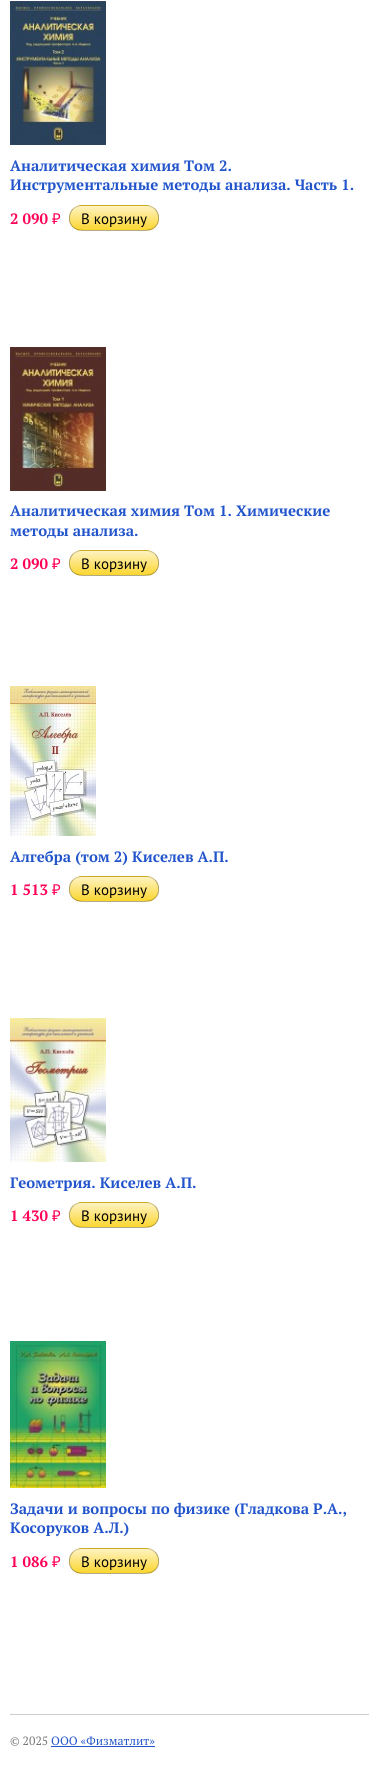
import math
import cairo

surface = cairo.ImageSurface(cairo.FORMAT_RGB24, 379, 1772)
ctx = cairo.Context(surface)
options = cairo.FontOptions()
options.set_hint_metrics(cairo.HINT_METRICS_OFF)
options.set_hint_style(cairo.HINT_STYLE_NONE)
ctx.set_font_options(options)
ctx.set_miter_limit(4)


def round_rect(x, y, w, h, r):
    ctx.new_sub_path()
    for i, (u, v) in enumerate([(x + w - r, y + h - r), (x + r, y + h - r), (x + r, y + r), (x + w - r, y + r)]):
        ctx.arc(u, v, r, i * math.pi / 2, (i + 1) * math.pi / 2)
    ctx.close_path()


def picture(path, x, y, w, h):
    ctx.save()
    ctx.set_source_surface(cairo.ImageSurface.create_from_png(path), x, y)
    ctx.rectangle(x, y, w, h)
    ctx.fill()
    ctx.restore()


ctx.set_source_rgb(1, 1, 1)
ctx.paint()
picture("img1.png", 10, 1, 96, 144)
ctx.select_font_face("PT Serif", cairo.FONT_SLANT_NORMAL, cairo.FONT_WEIGHT_BOLD)
ctx.set_font_size(15)
ctx.set_source_rgb(0.133, 0.333, 0.8)
ctx.move_to(10, 171)
ctx.show_text("Аналитическая химия Том 2.")
ctx.move_to(10, 190)
ctx.show_text("Инструментальные методы анализа. Часть 1.")
ctx.set_source_rgb(1, 0, 0.333)
ctx.move_to(10, 224)
ctx.show_text("2 090")
ctx.select_font_face("Noto Sans")
ctx.move_to(52, 224)
ctx.show_text("₽")
ctx.set_source_rgb(0.988, 0.839, 0.188)
round_rect(69, 205, 90, 26, 13)
ctx.fill()
ctx.save()
round_rect(69, 205, 90, 26, 13)
ctx.clip()
gradient = cairo.LinearGradient(114, 206, 114, 230)
gradient.add_color_stop_rgba(0, 1, 1, 1, 0.7)
gradient.add_color_stop_rgba(1, 1, 1, 1, 0)
ctx.set_source(gradient)
ctx.rectangle(69, 206, 90, 23)
ctx.fill()
gradient = cairo.LinearGradient(114, 230, 114, 254)
gradient.add_color_stop_rgba(0, 1, 1, 1, 0.7)
gradient.add_color_stop_rgba(1, 1, 1, 1, 0)
ctx.set_source(gradient)
ctx.rectangle(69, 230, 90, 1)
ctx.fill()
ctx.restore()
ctx.new_path()
ctx.move_to(73, 209)
ctx.curve_to(75.5, 207, 78.5, 205.5, 82, 205.5)
ctx.line_to(146, 205.5)
ctx.curve_to(149.5, 205.5, 152.5, 207, 155, 209)
ctx.set_source_rgba(0, 0, 0, 0.2)
ctx.set_line_width(1)
ctx.stroke()
ctx.new_path()
ctx.move_to(155, 209)
ctx.curve_to(158, 212, 159, 216.5, 158.5, 220.5)
ctx.curve_to(156, 232, 144.5, 230.5, 135.5, 230.5)
ctx.line_to(92.5, 230.5)
ctx.curve_to(83.5, 230.5, 72, 232, 69.5, 220.5)
ctx.curve_to(69, 216.5, 70, 212, 73, 209)
ctx.set_source_rgba(0, 0, 0, 0.3)
ctx.stroke()
ctx.select_font_face("PT Sans")
ctx.set_source_rgb(0, 0, 0)
ctx.move_to(81, 224)
ctx.show_text("В корзину")
picture("img2.png", 10, 347, 96, 144)
ctx.select_font_face("PT Serif", cairo.FONT_SLANT_NORMAL, cairo.FONT_WEIGHT_BOLD)
ctx.set_source_rgb(0.133, 0.333, 0.8)
ctx.move_to(10, 516)
ctx.show_text("Аналитическая химия Том 1. Химические")
ctx.move_to(10, 536)
ctx.show_text("методы анализа.")
ctx.set_source_rgb(1, 0, 0.333)
ctx.move_to(10, 569)
ctx.show_text("2 090")
ctx.select_font_face("Noto Sans")
ctx.move_to(52, 569)
ctx.show_text("₽")
ctx.set_source_rgb(0.988, 0.839, 0.188)
round_rect(69, 550, 90, 26, 13)
ctx.fill()
ctx.save()
round_rect(69, 550, 90, 26, 13)
ctx.clip()
gradient = cairo.LinearGradient(114, 551, 114, 575)
gradient.add_color_stop_rgba(0, 1, 1, 1, 0.7)
gradient.add_color_stop_rgba(1, 1, 1, 1, 0)
ctx.set_source(gradient)
ctx.rectangle(69, 551, 90, 23)
ctx.fill()
gradient = cairo.LinearGradient(114, 575, 114, 599)
gradient.add_color_stop_rgba(0, 1, 1, 1, 0.7)
gradient.add_color_stop_rgba(1, 1, 1, 1, 0)
ctx.set_source(gradient)
ctx.rectangle(69, 575, 90, 1)
ctx.fill()
ctx.restore()
ctx.new_path()
ctx.move_to(73, 554)
ctx.curve_to(75.5, 552, 78.5, 550.5, 82, 550.5)
ctx.line_to(146, 550.5)
ctx.curve_to(149.5, 550.5, 152.5, 552, 155, 554)
ctx.set_source_rgba(0, 0, 0, 0.2)
ctx.stroke()
ctx.new_path()
ctx.move_to(155, 554)
ctx.curve_to(158, 557, 159, 561.5, 158.5, 565.5)
ctx.curve_to(156, 577, 144.5, 575.5, 135.5, 575.5)
ctx.line_to(92.5, 575.5)
ctx.curve_to(83.5, 575.5, 72, 577, 69.5, 565.5)
ctx.curve_to(69, 561.5, 70, 557, 73, 554)
ctx.set_source_rgba(0, 0, 0, 0.3)
ctx.stroke()
ctx.select_font_face("PT Sans")
ctx.set_source_rgb(0, 0, 0)
ctx.move_to(81, 569)
ctx.show_text("В корзину")
picture("img3.png", 10, 686, 86, 150)
ctx.select_font_face("PT Serif", cairo.FONT_SLANT_NORMAL, cairo.FONT_WEIGHT_BOLD)
ctx.set_source_rgb(0.133, 0.333, 0.8)
ctx.move_to(10, 862)
ctx.show_text("Алгебра (том 2) Киселев А.П.")
ctx.set_source_rgb(1, 0, 0.333)
ctx.move_to(10, 895)
ctx.show_text("1 513")
ctx.select_font_face("Noto Sans")
ctx.move_to(52, 895)
ctx.show_text("₽")
ctx.set_source_rgb(0.988, 0.839, 0.188)
round_rect(69, 876, 90, 26, 13)
ctx.fill()
ctx.save()
round_rect(69, 876, 90, 26, 13)
ctx.clip()
gradient = cairo.LinearGradient(114, 877, 114, 901)
gradient.add_color_stop_rgba(0, 1, 1, 1, 0.7)
gradient.add_color_stop_rgba(1, 1, 1, 1, 0)
ctx.set_source(gradient)
ctx.rectangle(69, 877, 90, 23)
ctx.fill()
gradient = cairo.LinearGradient(114, 901, 114, 925)
gradient.add_color_stop_rgba(0, 1, 1, 1, 0.7)
gradient.add_color_stop_rgba(1, 1, 1, 1, 0)
ctx.set_source(gradient)
ctx.rectangle(69, 901, 90, 1)
ctx.fill()
ctx.restore()
ctx.new_path()
ctx.move_to(73, 880)
ctx.curve_to(75.5, 878, 78.5, 876.5, 82, 876.5)
ctx.line_to(146, 876.5)
ctx.curve_to(149.5, 876.5, 152.5, 878, 155, 880)
ctx.set_source_rgba(0, 0, 0, 0.2)
ctx.stroke()
ctx.new_path()
ctx.move_to(155, 880)
ctx.curve_to(158, 883, 159, 887.5, 158.5, 891.5)
ctx.curve_to(156, 903, 144.5, 901.5, 135.5, 901.5)
ctx.line_to(92.5, 901.5)
ctx.curve_to(83.5, 901.5, 72, 903, 69.5, 891.5)
ctx.curve_to(69, 887.5, 70, 883, 73, 880)
ctx.set_source_rgba(0, 0, 0, 0.3)
ctx.stroke()
ctx.select_font_face("PT Sans")
ctx.set_source_rgb(0, 0, 0)
ctx.move_to(81, 895)
ctx.show_text("В корзину")
picture("img4.png", 10, 1018, 96, 144)
ctx.select_font_face("PT Serif", cairo.FONT_SLANT_NORMAL, cairo.FONT_WEIGHT_BOLD)
ctx.set_source_rgb(0.133, 0.333, 0.8)
ctx.move_to(10, 1188)
ctx.show_text("Геометрия. Киселев А.П.")
ctx.set_source_rgb(1, 0, 0.333)
ctx.move_to(10, 1221)
ctx.show_text("1 430")
ctx.select_font_face("Noto Sans")
ctx.move_to(52, 1221)
ctx.show_text("₽")
ctx.set_source_rgb(0.988, 0.839, 0.188)
round_rect(69, 1202, 90, 26, 13)
ctx.fill()
ctx.save()
round_rect(69, 1202, 90, 26, 13)
ctx.clip()
gradient = cairo.LinearGradient(114, 1203, 114, 1227)
gradient.add_color_stop_rgba(0, 1, 1, 1, 0.7)
gradient.add_color_stop_rgba(1, 1, 1, 1, 0)
ctx.set_source(gradient)
ctx.rectangle(69, 1203, 90, 23)
ctx.fill()
gradient = cairo.LinearGradient(114, 1227, 114, 1251)
gradient.add_color_stop_rgba(0, 1, 1, 1, 0.7)
gradient.add_color_stop_rgba(1, 1, 1, 1, 0)
ctx.set_source(gradient)
ctx.rectangle(69, 1227, 90, 1)
ctx.fill()
ctx.restore()
ctx.new_path()
ctx.move_to(73, 1206)
ctx.curve_to(75.5, 1204, 78.5, 1202.5, 82, 1202.5)
ctx.line_to(146, 1202.5)
ctx.curve_to(149.5, 1202.5, 152.5, 1204, 155, 1206)
ctx.set_source_rgba(0, 0, 0, 0.2)
ctx.stroke()
ctx.new_path()
ctx.move_to(155, 1206)
ctx.curve_to(158, 1209, 159, 1213.5, 158.5, 1217.5)
ctx.curve_to(156, 1229, 144.5, 1227.5, 135.5, 1227.5)
ctx.line_to(92.5, 1227.5)
ctx.curve_to(83.5, 1227.5, 72, 1229, 69.5, 1217.5)
ctx.curve_to(69, 1213.5, 70, 1209, 73, 1206)
ctx.set_source_rgba(0, 0, 0, 0.3)
ctx.stroke()
ctx.select_font_face("PT Sans")
ctx.set_source_rgb(0, 0, 0)
ctx.move_to(81, 1221)
ctx.show_text("В корзину")
picture("img5.png", 10, 1341, 96, 147)
ctx.select_font_face("PT Serif", cairo.FONT_SLANT_NORMAL, cairo.FONT_WEIGHT_BOLD)
ctx.set_source_rgb(0.133, 0.333, 0.8)
ctx.move_to(10, 1514)
ctx.show_text("Задачи и вопросы по физике (Гладкова Р.А.,")
ctx.move_to(10, 1533)
ctx.show_text("Косоруков А.Л.)")
ctx.set_source_rgb(1, 0, 0.333)
ctx.move_to(10, 1567)
ctx.show_text("1 086")
ctx.select_font_face("Noto Sans")
ctx.move_to(52, 1567)
ctx.show_text("₽")
ctx.set_source_rgb(0.988, 0.839, 0.188)
round_rect(69, 1548, 90, 26, 13)
ctx.fill()
ctx.save()
round_rect(69, 1548, 90, 26, 13)
ctx.clip()
gradient = cairo.LinearGradient(114, 1549, 114, 1573)
gradient.add_color_stop_rgba(0, 1, 1, 1, 0.7)
gradient.add_color_stop_rgba(1, 1, 1, 1, 0)
ctx.set_source(gradient)
ctx.rectangle(69, 1549, 90, 23)
ctx.fill()
gradient = cairo.LinearGradient(114, 1573, 114, 1597)
gradient.add_color_stop_rgba(0, 1, 1, 1, 0.7)
gradient.add_color_stop_rgba(1, 1, 1, 1, 0)
ctx.set_source(gradient)
ctx.rectangle(69, 1573, 90, 1)
ctx.fill()
ctx.restore()
ctx.new_path()
ctx.move_to(73, 1552)
ctx.curve_to(75.5, 1550, 78.5, 1548.5, 82, 1548.5)
ctx.line_to(146, 1548.5)
ctx.curve_to(149.5, 1548.5, 152.5, 1550, 155, 1552)
ctx.set_source_rgba(0, 0, 0, 0.2)
ctx.stroke()
ctx.new_path()
ctx.move_to(155, 1552)
ctx.curve_to(158, 1555, 159, 1559.5, 158.5, 1563.5)
ctx.curve_to(156, 1575, 144.5, 1573.5, 135.5, 1573.5)
ctx.line_to(92.5, 1573.5)
ctx.curve_to(83.5, 1573.5, 72, 1575, 69.5, 1563.5)
ctx.curve_to(69, 1559.5, 70, 1555, 73, 1552)
ctx.set_source_rgba(0, 0, 0, 0.3)
ctx.stroke()
ctx.select_font_face("PT Sans")
ctx.set_source_rgb(0, 0, 0)
ctx.move_to(81, 1567)
ctx.show_text("В корзину")
ctx.set_source_rgb(0.8, 0.8, 0.8)
ctx.rectangle(10, 1714, 359, 1)
ctx.fill()
ctx.select_font_face("PT Serif")
ctx.set_font_size(12)
ctx.set_source_rgb(0.467, 0.467, 0.467)
ctx.move_to(10, 1745)
ctx.show_text("© 2025")
ctx.set_source_rgb(0.133, 0.333, 0.8)
ctx.move_to(51, 1745)
ctx.show_text("ООО «Физматлит»")
ctx.rectangle(51, 1746, 104, 1)
ctx.fill()
surface.write_to_png("page.png")
